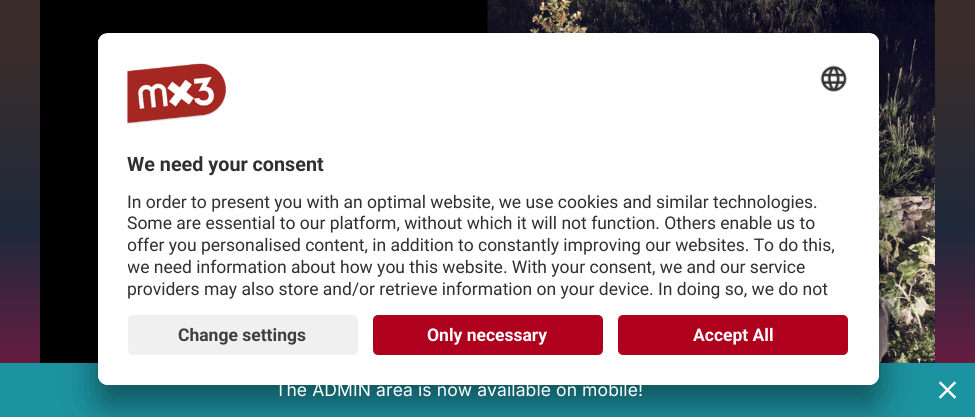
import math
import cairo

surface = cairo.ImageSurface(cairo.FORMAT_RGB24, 975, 417)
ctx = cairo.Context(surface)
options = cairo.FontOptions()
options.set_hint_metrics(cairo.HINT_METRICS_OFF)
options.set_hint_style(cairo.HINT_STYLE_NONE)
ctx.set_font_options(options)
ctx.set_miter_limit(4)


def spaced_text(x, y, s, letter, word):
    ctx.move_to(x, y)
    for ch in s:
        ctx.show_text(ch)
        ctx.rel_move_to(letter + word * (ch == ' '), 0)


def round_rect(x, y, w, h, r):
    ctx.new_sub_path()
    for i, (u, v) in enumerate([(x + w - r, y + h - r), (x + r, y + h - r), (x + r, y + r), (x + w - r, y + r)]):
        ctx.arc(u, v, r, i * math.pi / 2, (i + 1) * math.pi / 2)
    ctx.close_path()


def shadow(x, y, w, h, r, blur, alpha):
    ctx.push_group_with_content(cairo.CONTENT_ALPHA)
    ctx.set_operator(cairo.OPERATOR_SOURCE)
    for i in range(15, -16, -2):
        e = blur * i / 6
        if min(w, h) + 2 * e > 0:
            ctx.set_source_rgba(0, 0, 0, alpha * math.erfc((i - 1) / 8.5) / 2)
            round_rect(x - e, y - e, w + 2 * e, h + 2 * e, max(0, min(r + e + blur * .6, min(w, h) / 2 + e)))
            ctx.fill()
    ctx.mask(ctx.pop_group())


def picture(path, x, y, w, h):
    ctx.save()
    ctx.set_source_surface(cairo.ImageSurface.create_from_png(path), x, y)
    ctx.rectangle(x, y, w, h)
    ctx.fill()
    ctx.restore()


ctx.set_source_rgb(1, 1, 1)
ctx.paint()
gradient = cairo.LinearGradient(488, 0, 488, 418)
gradient.add_color_stop_rgba(0.1, 0.231, 0.176, 0.165, 1)
gradient.add_color_stop_rgba(0.55, 0.118, 0.161, 0.231, 1)
gradient.add_color_stop_rgba(1, 0.514, 0.094, 0.263, 1)
ctx.set_source(gradient)
ctx.rectangle(0, 0, 975, 363)
ctx.fill()
ctx.set_source_rgb(0, 0, 0)
ctx.rectangle(40, 0, 448, 363)
ctx.fill()
picture("img1.png", 487, 0, 448, 363)
ctx.set_source_rgb(0.11, 0.576, 0.631)
ctx.rectangle(0, 363, 975, 54)
ctx.fill()
ctx.set_source_rgb(0, 0, 0)
shadow(98, 58, 781, 352, 10, 17.5, 0.3)
shadow(98, 39, 781, 352, 10, 16, 0.22)
ctx.set_source_rgb(1, 1, 1)
round_rect(98, 33, 781, 352, 10)
ctx.fill()
ctx.save()
round_rect(98, 33, 781, 352, 10)
ctx.clip()
ctx.new_path()
ctx.move_to(108, 33)
ctx.line_to(869, 33)
ctx.curve_to(874.5, 33, 879, 37.5, 879, 43)
ctx.line_to(879, 305)
ctx.line_to(98, 305)
ctx.line_to(98, 43)
ctx.curve_to(98, 37.5, 102.5, 33, 108, 33)
ctx.close_path()
ctx.clip()
ctx.rectangle(98, 34, 781, 271)
ctx.fill()
ctx.restore()
picture("img2.png", 127, 63, 99, 61)
picture("img3.png", 820, 65, 27, 27)
ctx.select_font_face("Roboto", cairo.FONT_SLANT_NORMAL, cairo.FONT_WEIGHT_BOLD)
ctx.set_font_size(19.75)
ctx.set_source_rgb(0.188, 0.188, 0.188)
ctx.move_to(127, 171)
ctx.show_text("We need your consent")
ctx.select_font_face("Roboto")
ctx.set_font_size(17.5)
ctx.move_to(127, 208)
ctx.show_text("In order to present you with an optimal website, we use cookies and similar technologies.")
ctx.move_to(127, 229)
ctx.show_text("Some are essential to our platform, without which it will not function. Others enable us to")
ctx.save()
ctx.rectangle(128, 186, 721, 119)
ctx.clip()
ctx.move_to(127, 251)
ctx.show_text("offer you personalised content, in addition to constantly improving our websites. To do this,")
ctx.move_to(127, 273)
ctx.show_text("we need information about how you this website. With your consent, we and our service")
ctx.restore()
ctx.move_to(127, 295)
ctx.show_text("providers may also store and/or retrieve information on your device. In doing so, we do not")
ctx.set_source_rgb(1, 1, 1)
ctx.new_path()
ctx.move_to(98, 305)
ctx.line_to(879, 305)
ctx.line_to(879, 375)
ctx.curve_to(879, 380.5, 874.5, 385, 869, 385)
ctx.line_to(108, 385)
ctx.curve_to(102.5, 385, 98, 380.5, 98, 375)
ctx.close_path()
ctx.fill()
ctx.set_source_rgb(0.941, 0.941, 0.941)
round_rect(128, 315, 230, 40, 5)
ctx.fill()
ctx.select_font_face("Roboto", cairo.FONT_SLANT_NORMAL, cairo.FONT_WEIGHT_BOLD)
ctx.set_source_rgb(0.247, 0.247, 0.247)
ctx.move_to(178, 341)
ctx.show_text("Change settings")
ctx.set_source_rgb(0.686, 0, 0.118)
round_rect(373, 315, 230, 40, 5)
ctx.fill()
ctx.set_source_rgb(1, 1, 1)
ctx.move_to(427, 341)
ctx.show_text("Only necessary")
ctx.set_source_rgb(0.686, 0, 0.118)
round_rect(618, 315, 230, 40, 5)
ctx.fill()
ctx.set_source_rgb(1, 1, 1)
ctx.move_to(693, 341)
ctx.show_text("Accept All")
ctx.select_font_face("Inter")
spaced_text(275, 396, "The ADMIN area is now available on mobile!", 0.1, 0)
picture("img4.png", 938, 381, 19, 18)
surface.write_to_png("page.png")
